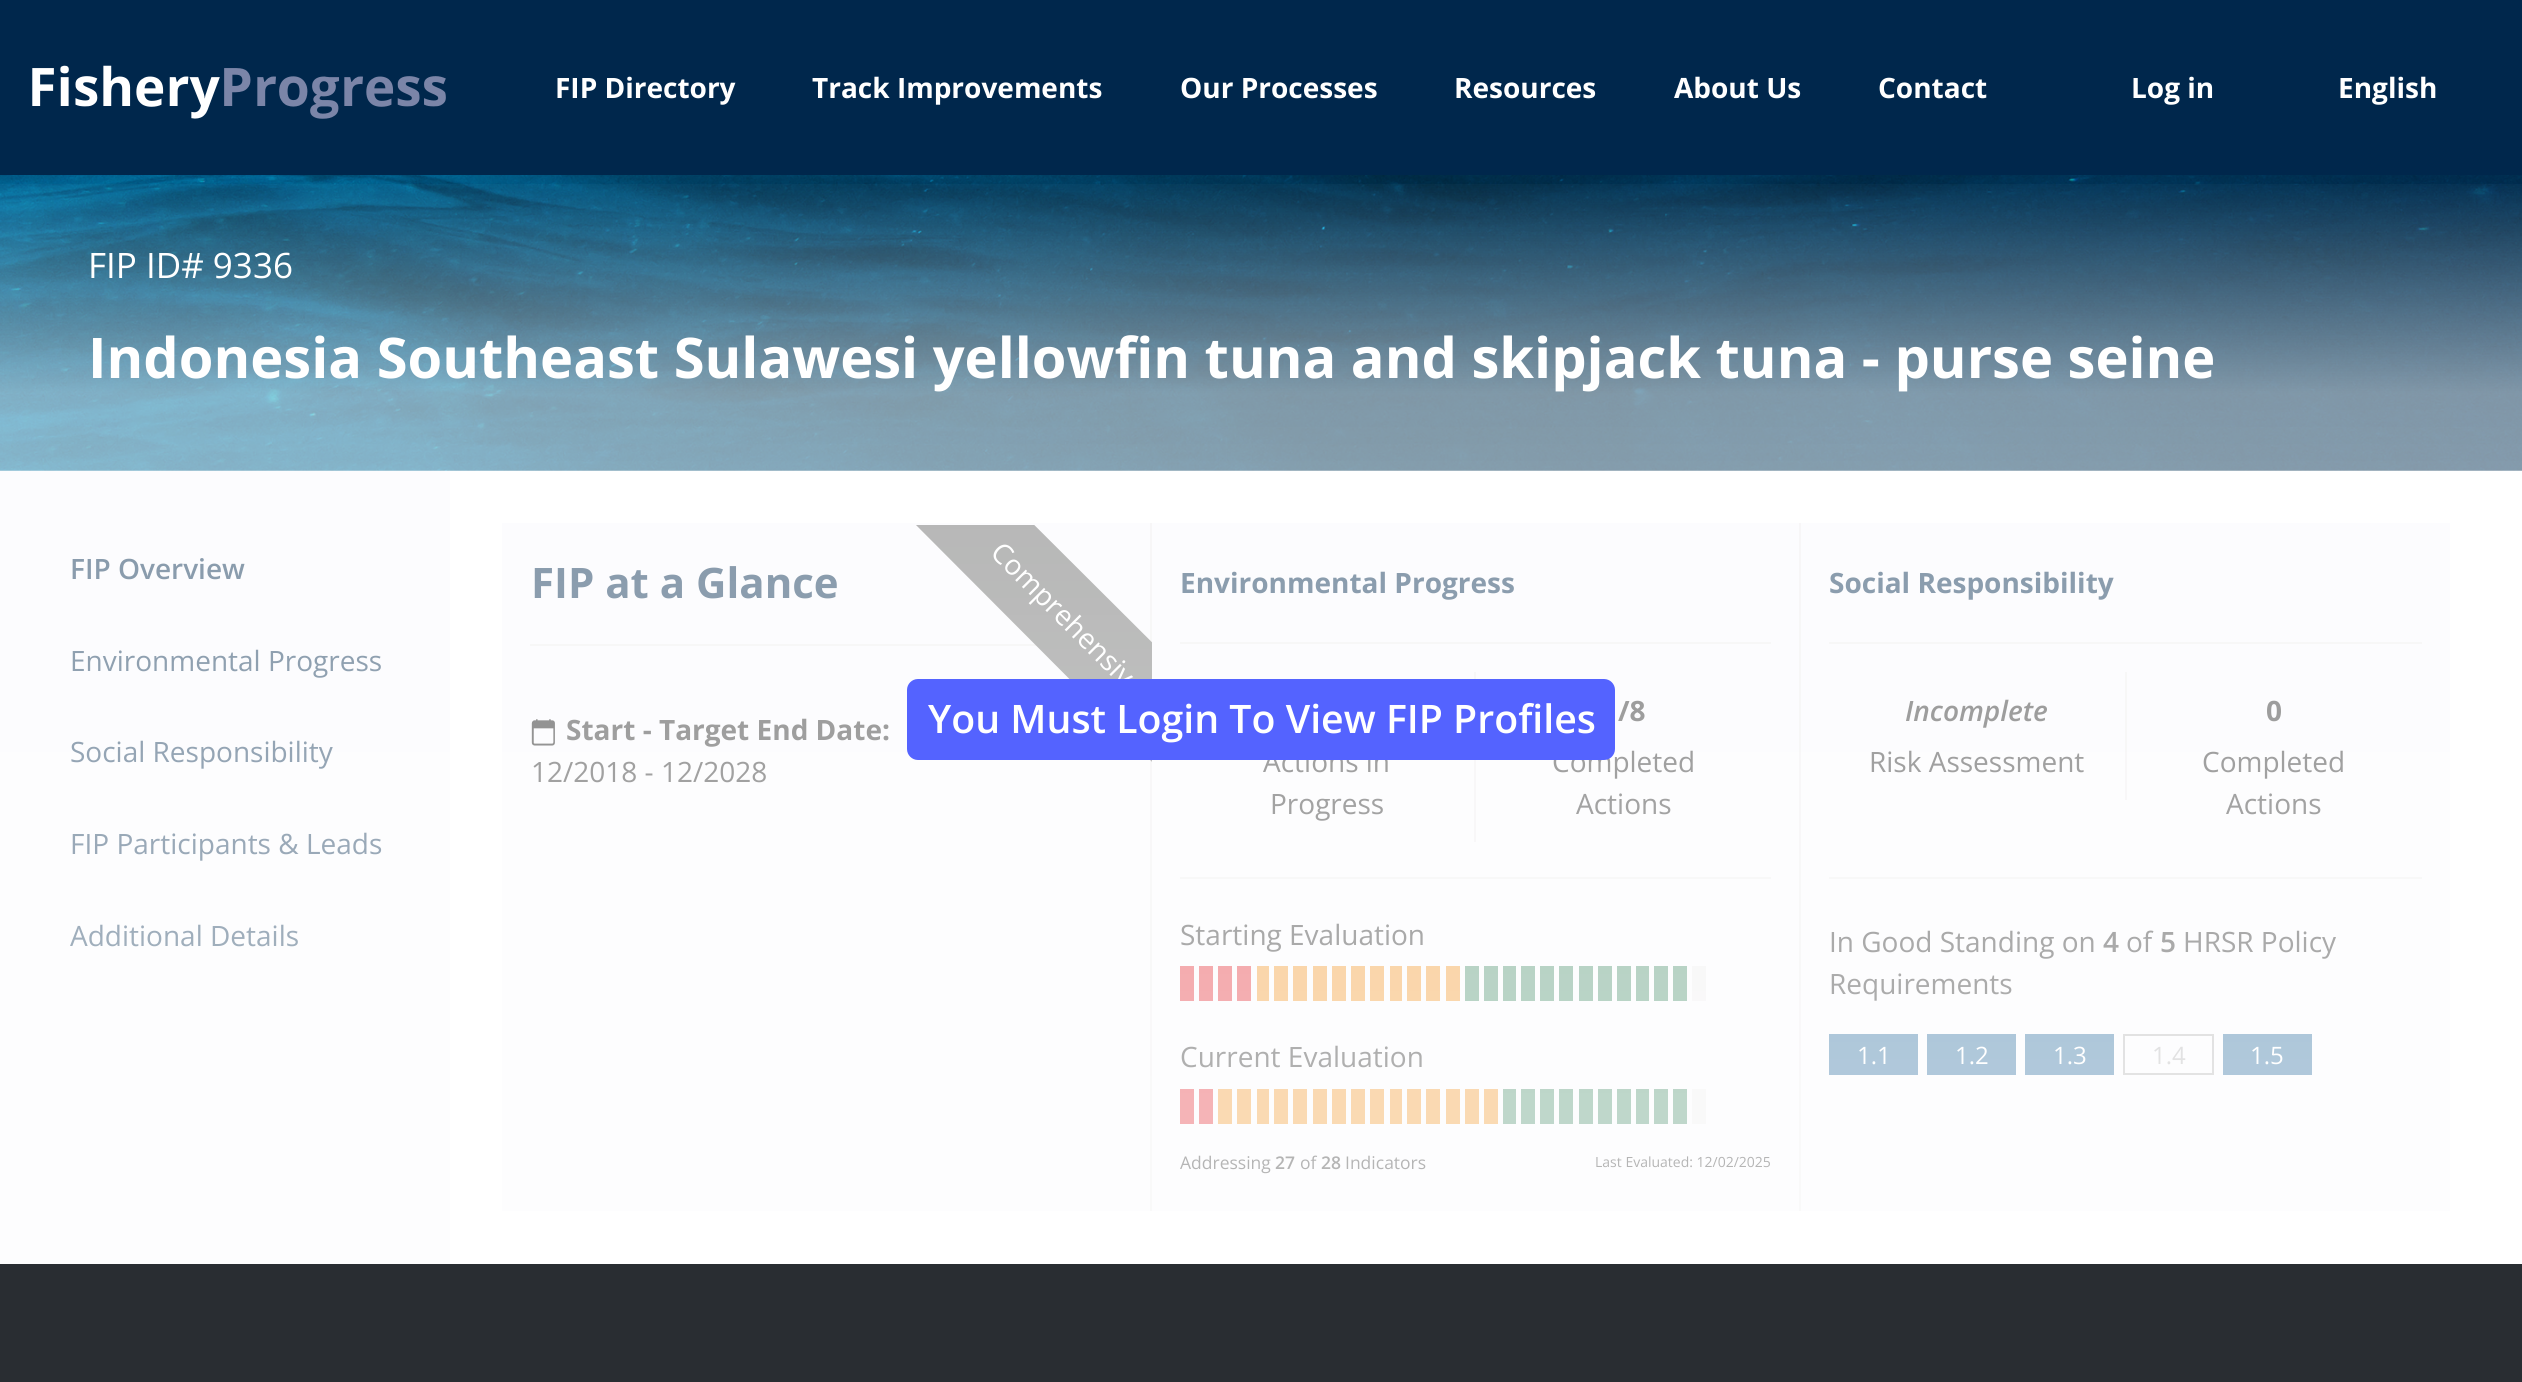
import math
import cairo

surface = cairo.ImageSurface(cairo.FORMAT_RGB24, 2522, 1382)
ctx = cairo.Context(surface)
options = cairo.FontOptions()
options.set_hint_metrics(cairo.HINT_METRICS_OFF)
options.set_hint_style(cairo.HINT_STYLE_NONE)
ctx.set_font_options(options)
ctx.set_miter_limit(4)


def round_rect(x, y, w, h, r):
    ctx.new_sub_path()
    for i, (u, v) in enumerate([(x + w - r, y + h - r), (x + r, y + h - r), (x + r, y + r), (x + w - r, y + r)]):
        ctx.arc(u, v, r, i * math.pi / 2, (i + 1) * math.pi / 2)
    ctx.close_path()


def picture(path, x, y, w, h):
    ctx.save()
    ctx.set_source_surface(cairo.ImageSurface.create_from_png(path), x, y)
    ctx.rectangle(x, y, w, h)
    ctx.fill()
    ctx.restore()


ctx.set_source_rgb(1, 1, 1)
ctx.paint()
ctx.set_source_rgb(0, 0.153, 0.298)
ctx.rectangle(0, 0, 2522, 175)
ctx.fill()
picture("img1.png", 32, 65, 414, 54)
ctx.select_font_face("Open Sans", cairo.FONT_SLANT_NORMAL, cairo.FONT_WEIGHT_BOLD)
ctx.set_font_size(28)
ctx.set_source_rgb(1, 1, 1)
ctx.move_to(555, 98)
ctx.show_text("FIP Directory")
ctx.move_to(812, 98)
ctx.show_text("Track Improvements")
ctx.move_to(1180, 98)
ctx.show_text("Our Processes")
ctx.move_to(1454, 98)
ctx.show_text("Resources")
ctx.move_to(1674, 98)
ctx.show_text("About Us")
ctx.move_to(1878, 98)
ctx.show_text("Contact")
ctx.move_to(2131, 98)
ctx.show_text("Log in")
ctx.move_to(2338, 98)
ctx.show_text("English")
picture("img2.png", 0, 175, 2522, 296)
ctx.select_font_face("Open Sans")
ctx.set_font_size(35)
ctx.move_to(88, 278)
ctx.show_text("FIP ID# 9336")
ctx.select_font_face("Open Sans", cairo.FONT_SLANT_NORMAL, cairo.FONT_WEIGHT_BOLD)
ctx.set_font_size(56)
ctx.move_to(88, 378)
ctx.show_text("Indonesia Southeast Sulawesi yellowfin tuna and skipjack tuna - purse seine")
ctx.set_source_rgb(0.976, 0.976, 0.988)
ctx.rectangle(0, 471, 450, 793)
ctx.fill()
ctx.select_font_face("Open Sans SemiBold")
ctx.set_font_size(28)
ctx.set_source_rgb(0, 0.153, 0.298)
ctx.move_to(70, 579)
ctx.show_text("FIP Overview")
ctx.select_font_face("Open Sans")
ctx.move_to(70, 671)
ctx.show_text("Environmental Progress")
ctx.move_to(70, 762)
ctx.show_text("Social Responsibility")
ctx.move_to(70, 854)
ctx.show_text("FIP Participants & Leads")
ctx.move_to(70, 946)
ctx.show_text("Additional Details")
ctx.set_source_rgb(0.976, 0.976, 0.988)
ctx.rectangle(502, 523, 648, 688)
ctx.fill()
ctx.set_source_rgb(0.929, 0.925, 0.929)
ctx.rectangle(1150, 523, 2, 688)
ctx.fill()
ctx.rectangle(530, 644, 507, 2)
ctx.fill()
ctx.save()
ctx.rectangle(915, 525, 263, 263)
ctx.clip()
ctx.set_source_rgb(0.4, 0.404, 0.4)
ctx.new_path()
ctx.move_to(959, 450)
ctx.line_to(1238, 728)
ctx.line_to(1178, 788)
ctx.line_to(900, 509)
ctx.close_path()
ctx.fill()
ctx.restore()
ctx.set_source_rgb(1, 1, 1)
ctx.save()
ctx.translate(989, 554)
ctx.rotate(45 * math.pi / 180)
ctx.move_to(0, 0)
ctx.show_text("Comprehensive")
ctx.restore()
picture("img3.png", 531, 719, 24, 27)
ctx.select_font_face("Open Sans", cairo.FONT_SLANT_NORMAL, cairo.FONT_WEIGHT_BOLD)
ctx.set_source_rgb(0.102, 0.102, 0.102)
ctx.move_to(566, 740)
ctx.show_text("Start - Target End Date:")
ctx.select_font_face("Open Sans")
ctx.move_to(531, 782)
ctx.show_text("12/2018 - 12/2028")
ctx.select_font_face("Open Sans", cairo.FONT_SLANT_NORMAL, cairo.FONT_WEIGHT_BOLD)
ctx.set_font_size(42)
ctx.set_source_rgb(0, 0.153, 0.298)
ctx.move_to(531, 598)
ctx.show_text("FIP at a Glance")
ctx.set_source_rgb(0.976, 0.976, 0.988)
ctx.rectangle(1152, 523, 647, 688)
ctx.fill()
ctx.set_source_rgb(0.929, 0.925, 0.929)
ctx.rectangle(1799, 523, 2, 688)
ctx.fill()
ctx.rectangle(1180, 642, 591, 2)
ctx.fill()
ctx.set_font_size(28)
ctx.set_source_rgb(0, 0.153, 0.298)
ctx.move_to(1180, 593)
ctx.show_text("Environmental Progress")
ctx.set_source_rgb(0.929, 0.925, 0.929)
ctx.rectangle(1180, 877, 591, 2)
ctx.fill()
ctx.rectangle(1474, 672, 2, 170)
ctx.fill()
ctx.select_font_face("Open Sans")
ctx.set_source_rgb(0.102, 0.102, 0.102)
ctx.move_to(1263, 772)
ctx.show_text("Actions in")
ctx.move_to(1270, 814)
ctx.show_text("Progress")
ctx.select_font_face("Open Sans", cairo.FONT_SLANT_NORMAL, cairo.FONT_WEIGHT_BOLD)
ctx.move_to(1618, 721)
ctx.show_text("/8")
ctx.select_font_face("Open Sans")
ctx.move_to(1552, 772)
ctx.show_text("Completed")
ctx.move_to(1576, 814)
ctx.show_text("Actions")
ctx.move_to(1180, 945)
ctx.show_text("Starting Evaluation")
ctx.set_source_rgb(0.882, 0.118, 0.149)
ctx.rectangle(1180, 966, 14, 35)
ctx.fill()
ctx.rectangle(1199, 966, 14, 35)
ctx.fill()
ctx.rectangle(1218, 966, 14, 35)
ctx.fill()
ctx.rectangle(1237, 966, 14, 35)
ctx.fill()
ctx.set_source_rgb(0.945, 0.561, 0.11)
ctx.rectangle(1257, 966, 12, 35)
ctx.fill()
ctx.rectangle(1274, 966, 14, 35)
ctx.fill()
ctx.rectangle(1293, 966, 14, 35)
ctx.fill()
ctx.rectangle(1313, 966, 14, 35)
ctx.fill()
ctx.rectangle(1332, 966, 14, 35)
ctx.fill()
ctx.rectangle(1351, 966, 14, 35)
ctx.fill()
ctx.rectangle(1370, 966, 14, 35)
ctx.fill()
ctx.rectangle(1390, 966, 12, 35)
ctx.fill()
ctx.rectangle(1407, 966, 14, 35)
ctx.fill()
ctx.rectangle(1426, 966, 14, 35)
ctx.fill()
ctx.rectangle(1446, 966, 14, 35)
ctx.fill()
ctx.set_source_rgb(0.243, 0.529, 0.384)
ctx.rectangle(1465, 966, 14, 35)
ctx.fill()
ctx.rectangle(1484, 966, 14, 35)
ctx.fill()
ctx.rectangle(1503, 966, 13, 35)
ctx.fill()
ctx.rectangle(1521, 966, 14, 35)
ctx.fill()
ctx.rectangle(1540, 966, 14, 35)
ctx.fill()
ctx.rectangle(1559, 966, 14, 35)
ctx.fill()
ctx.rectangle(1579, 966, 14, 35)
ctx.fill()
ctx.rectangle(1598, 966, 14, 35)
ctx.fill()
ctx.rectangle(1617, 966, 14, 35)
ctx.fill()
ctx.rectangle(1636, 966, 13, 35)
ctx.fill()
ctx.rectangle(1654, 966, 14, 35)
ctx.fill()
ctx.rectangle(1673, 966, 14, 35)
ctx.fill()
ctx.set_source_rgb(0.929, 0.925, 0.929)
ctx.rectangle(1692, 966, 14, 35)
ctx.fill()
ctx.set_source_rgb(0.102, 0.102, 0.102)
ctx.move_to(1180, 1067)
ctx.show_text("Current Evaluation")
ctx.set_source_rgb(0.882, 0.118, 0.149)
ctx.rectangle(1180, 1089, 14, 35)
ctx.fill()
ctx.rectangle(1199, 1089, 14, 35)
ctx.fill()
ctx.set_source_rgb(0.945, 0.561, 0.11)
ctx.rectangle(1218, 1089, 14, 35)
ctx.fill()
ctx.rectangle(1237, 1089, 14, 35)
ctx.fill()
ctx.rectangle(1257, 1089, 12, 35)
ctx.fill()
ctx.rectangle(1274, 1089, 14, 35)
ctx.fill()
ctx.rectangle(1293, 1089, 14, 35)
ctx.fill()
ctx.rectangle(1313, 1089, 14, 35)
ctx.fill()
ctx.rectangle(1332, 1089, 14, 35)
ctx.fill()
ctx.rectangle(1351, 1089, 14, 35)
ctx.fill()
ctx.rectangle(1370, 1089, 14, 35)
ctx.fill()
ctx.rectangle(1390, 1089, 12, 35)
ctx.fill()
ctx.rectangle(1407, 1089, 14, 35)
ctx.fill()
ctx.rectangle(1426, 1089, 14, 35)
ctx.fill()
ctx.rectangle(1446, 1089, 14, 35)
ctx.fill()
ctx.rectangle(1465, 1089, 14, 35)
ctx.fill()
ctx.rectangle(1484, 1089, 14, 35)
ctx.fill()
ctx.set_source_rgb(0.243, 0.529, 0.384)
ctx.rectangle(1503, 1089, 13, 35)
ctx.fill()
ctx.rectangle(1521, 1089, 14, 35)
ctx.fill()
ctx.rectangle(1540, 1089, 14, 35)
ctx.fill()
ctx.rectangle(1559, 1089, 14, 35)
ctx.fill()
ctx.rectangle(1579, 1089, 14, 35)
ctx.fill()
ctx.rectangle(1598, 1089, 14, 35)
ctx.fill()
ctx.rectangle(1617, 1089, 14, 35)
ctx.fill()
ctx.rectangle(1636, 1089, 13, 35)
ctx.fill()
ctx.rectangle(1654, 1089, 14, 35)
ctx.fill()
ctx.rectangle(1673, 1089, 14, 35)
ctx.fill()
ctx.set_source_rgb(0.929, 0.925, 0.929)
ctx.rectangle(1692, 1089, 14, 35)
ctx.fill()
ctx.set_font_size(17.5)
ctx.set_source_rgb(0.102, 0.102, 0.102)
ctx.move_to(1180, 1169)
ctx.show_text("Addressing")
ctx.select_font_face("Open Sans SemiBold")
ctx.move_to(1275, 1169)
ctx.show_text("27")
ctx.select_font_face("Open Sans")
ctx.move_to(1300, 1169)
ctx.show_text("of")
ctx.select_font_face("Open Sans SemiBold")
ctx.move_to(1321, 1169)
ctx.show_text("28")
ctx.select_font_face("Open Sans")
ctx.move_to(1345, 1169)
ctx.show_text("Indicators")
ctx.set_font_size(14)
ctx.move_to(1595, 1167)
ctx.show_text("Last Evaluated: 12/02/2025")
ctx.set_source_rgb(0.976, 0.976, 0.988)
ctx.rectangle(1801, 523, 649, 688)
ctx.fill()
ctx.set_source_rgb(0.929, 0.925, 0.929)
ctx.rectangle(1829, 642, 593, 2)
ctx.fill()
ctx.select_font_face("Open Sans", cairo.FONT_SLANT_NORMAL, cairo.FONT_WEIGHT_BOLD)
ctx.set_font_size(28)
ctx.set_source_rgb(0, 0.153, 0.298)
ctx.move_to(1829, 593)
ctx.show_text("Social Responsibility")
ctx.set_source_rgb(0.929, 0.925, 0.929)
ctx.rectangle(1829, 877, 593, 2)
ctx.fill()
ctx.rectangle(2125, 672, 2, 128)
ctx.fill()
ctx.select_font_face("Open Sans SemiBold", cairo.FONT_SLANT_ITALIC)
ctx.set_source_rgb(0.102, 0.102, 0.102)
ctx.move_to(1905, 721)
ctx.show_text("Incomplete")
ctx.select_font_face("Open Sans")
ctx.move_to(1869, 772)
ctx.show_text("Risk Assessment")
ctx.select_font_face("Open Sans", cairo.FONT_SLANT_NORMAL, cairo.FONT_WEIGHT_BOLD)
ctx.move_to(2266, 721)
ctx.show_text("0")
ctx.select_font_face("Open Sans")
ctx.move_to(2202, 772)
ctx.show_text("Completed")
ctx.move_to(2226, 814)
ctx.show_text("Actions")
ctx.move_to(1829, 952)
ctx.show_text("In Good Standing on")
ctx.select_font_face("Open Sans SemiBold")
ctx.move_to(2103, 952)
ctx.show_text("4")
ctx.select_font_face("Open Sans")
ctx.move_to(2126, 952)
ctx.show_text("of")
ctx.select_font_face("Open Sans SemiBold")
ctx.move_to(2160, 952)
ctx.show_text("5")
ctx.select_font_face("Open Sans")
ctx.move_to(2183, 952)
ctx.show_text("HRSR Policy")
ctx.move_to(1829, 994)
ctx.show_text("Requirements")
ctx.set_source_rgb(0.098, 0.38, 0.588)
ctx.rectangle(1829, 1034, 89, 41)
ctx.fill()
ctx.set_font_size(24)
ctx.set_source_rgb(1, 1, 1)
ctx.move_to(1857, 1064)
ctx.show_text("1.1")
ctx.set_source_rgb(0.098, 0.38, 0.588)
ctx.rectangle(1927, 1034, 89, 41)
ctx.fill()
ctx.set_source_rgb(1, 1, 1)
ctx.move_to(1955, 1064)
ctx.show_text("1.2")
ctx.set_source_rgb(0.098, 0.38, 0.588)
ctx.rectangle(2025, 1034, 89, 41)
ctx.fill()
ctx.set_source_rgb(1, 1, 1)
ctx.move_to(2053, 1064)
ctx.show_text("1.3")
ctx.rectangle(2124, 1035, 89, 39)
ctx.set_source_rgb(0.678, 0.678, 0.682)
ctx.stroke()
ctx.move_to(2152, 1064)
ctx.show_text("1.4")
ctx.set_source_rgb(0.098, 0.38, 0.588)
ctx.rectangle(2223, 1034, 89, 41)
ctx.fill()
ctx.set_source_rgb(1, 1, 1)
ctx.move_to(2250, 1064)
ctx.show_text("1.5")
gradient = cairo.LinearGradient(1262, 175, 1262, 1264)
gradient.add_color_stop_rgba(0, 1, 1, 1, 0)
gradient.add_color_stop_rgba(0.2, 1, 1, 1, 0.5)
gradient.add_color_stop_rgba(1, 1, 1, 1, 0.7)
ctx.set_source(gradient)
ctx.rectangle(0, 184, 2522, 1080)
ctx.fill()
ctx.set_source_rgb(0.329, 0.388, 1)
round_rect(907, 679, 708, 81, 11)
ctx.fill()
ctx.select_font_face("Open Sans SemiBold")
ctx.set_font_size(39.25)
ctx.set_source_rgb(1, 1, 1)
ctx.move_to(928, 733)
ctx.show_text("You Must Login To View FIP Profiles")
ctx.set_source_rgb(0.161, 0.176, 0.196)
ctx.rectangle(0, 1264, 2522, 118)
ctx.fill()
surface.write_to_png("page.png")
